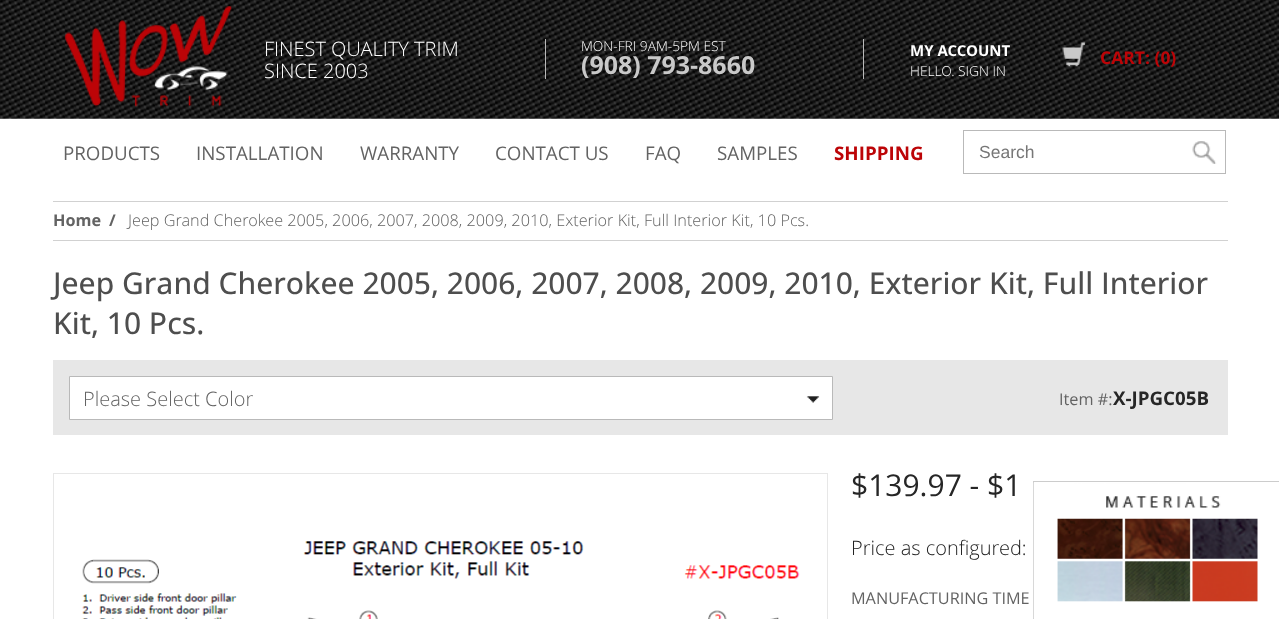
<!DOCTYPE html>
<meta charset="utf-8">
<style>body { margin: 0 } canvas { display: block }</style>
<canvas id="canvas" width="1279" height="619"></canvas>
<img id="img1" src="images/1.png" hidden>
<img id="img2" src="images/2.png" hidden>
<img id="img3" src="images/3.png" hidden>
<img id="img4" src="images/4.png" hidden>
<img id="img5" src="images/5.png" hidden>
<img id="img6" src="images/6.png" hidden>
<img id="img7" src="images/7.png" hidden>
<script>
window.onload = function () {
    const canvas = document.getElementById('canvas');
    const context = canvas.getContext('2d');
    context.miterLimit = 4;
    context.fontKerning = 'normal';

    context.fillStyle = 'rgb(255, 255, 255)';
    context.fillRect(0, 0, 1279, 619);
    context.drawImage(document.getElementById('img1'), 0, 0, 1279, 119);
    context.drawImage(document.getElementById('img2'), 64, 6, 168, 101);
    context.fillStyle = 'rgb(185, 185, 185)';
    context.fillRect(545, 39, 1, 40);
    context.fillRect(863, 39, 1, 40);
    context.drawImage(document.getElementById('img3'), 1062, 42, 23, 25);
    context.fillRect(963, 130, 263, 1);
    context.fillRect(963, 173, 225, 1);
    context.fillRect(963, 130, 1, 44);
    context.drawImage(document.getElementById('img4'), 1192, 141, 25, 23);
    context.fillRect(1225, 130, 1, 44);
    context.fillRect(1183, 173, 43, 1);
    context.fillStyle = 'rgb(209, 209, 209)';
    context.fillRect(53, 201, 1175, 1);
    context.fillRect(53, 240, 1175, 1);
    context.fillStyle = 'rgb(231, 231, 231)';
    context.fillRect(53, 360, 1175, 75);
    context.fillStyle = 'rgb(255, 255, 255)';
    context.beginPath();
    context.rect(69.5, 376.5, 763, 43);
    context.fill();
    context.strokeStyle = 'rgb(185, 185, 185)';
    context.stroke();
    context.drawImage(document.getElementById('img5'), 806, 396, 14, 7);
    context.strokeStyle = 'rgb(231, 231, 231)';
    context.strokeRect(53.5, 473.5, 774, 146);
    context.drawImage(document.getElementById('img6'), 82, 541, 718, 78);
    context.strokeStyle = 'rgb(204, 204, 204)';
    context.strokeRect(1033.5, 481.5, 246, 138);
    context.drawImage(document.getElementById('img7'), 1033, 482, 225, 137);
    context.font = '300 20px Open Sans';
    context.fillText('FINEST QUALITY TRIM', 264, 56);
    context.fillText('SINCE 2003', 264, 78);
    context.font = '300 13.75px Open Sans';
    context.fillText('MON-FRI 9AM-5PM EST', 581, 51);
    context.font = 'bold 25px Open Sans';
    context.fillStyle = 'rgb(201, 201, 201)';
    context.fillText('(908) 793-8660', 581, 74);
    context.font = 'bold 15px Open Sans';
    context.fillStyle = 'rgb(255, 255, 255)';
    context.fillText('MY ACCOUNT', 910, 56);
    context.font = '300 13.75px Open Sans';
    context.fillText('HELLO. SIGN IN', 910, 76);
    context.font = 'bold 17.5px Open Sans';
    context.fillStyle = 'rgb(188, 4, 7)';
    context.fillText('CART: (0)', 1100, 64);
    context.font = '18.75px Open Sans';
    context.fillStyle = 'rgb(99, 99, 99)';
    context.fillText('PRODUCTS', 63, 160);
    context.fillText('INSTALLATION', 196, 160);
    context.fillText('WARRANTY', 360, 160);
    context.fillText('CONTACT US', 495, 160);
    context.fillText('FAQ', 645, 160);
    context.fillText('SAMPLES', 717, 160);
    context.font = 'bold 18.75px Open Sans';
    context.fillStyle = 'rgb(188, 4, 7)';
    context.fillText('SHIPPING', 834, 160);
    context.font = '17.5px Liberation Sans';
    context.fillStyle = 'rgb(119, 119, 119)';
    context.fillText('Search', 979, 158);
    context.font = 'bold 16.25px Open Sans';
    context.fillStyle = 'rgb(99, 99, 99)';
    context.fillText('Home', 53, 226);
    context.fillText('/', 109, 226);
    context.font = '300 16.25px Open Sans';
    context.fillText('Jeep Grand Cherokee 2005, 2006, 2007, 2008, 2009, 2010, Exterior Kit, Full Interior Kit, 10 Pcs.', 128, 226);
    context.font = '500 30px Open Sans';
    context.fillStyle = 'rgb(78, 78, 78)';
    context.fillText('Jeep Grand Cherokee 2005, 2006, 2007, 2008, 2009, 2010, Exterior Kit, Full Interior', 53, 294);
    context.fillText('Kit, 10 Pcs.', 53, 334);
    context.font = '300 20px Open Sans';
    context.fillStyle = 'rgb(99, 99, 99)';
    context.fillText('Please Select Color', 83, 406);
    context.font = '16.25px Open Sans';
    context.fillText('Item #:', 1059, 405);
    context.font = 'bold 18.75px Open Sans';
    context.fillStyle = 'rgb(38, 38, 38)';
    context.fillText('X-JPGC05B', 1113, 405);
    context.font = '30px Open Sans';
    context.fillText('$139.97 - $1', 851, 496);
    context.font = '300 20px Open Sans';
    context.fillStyle = 'rgb(32, 32, 32)';
    context.fillText('Price as configured:', 851, 555);
    context.font = '16.25px Open Sans';
    context.fillStyle = 'rgb(99, 99, 99)';
    context.fillText('MANUFACTURING TIME', 851, 604);
};
</script>
